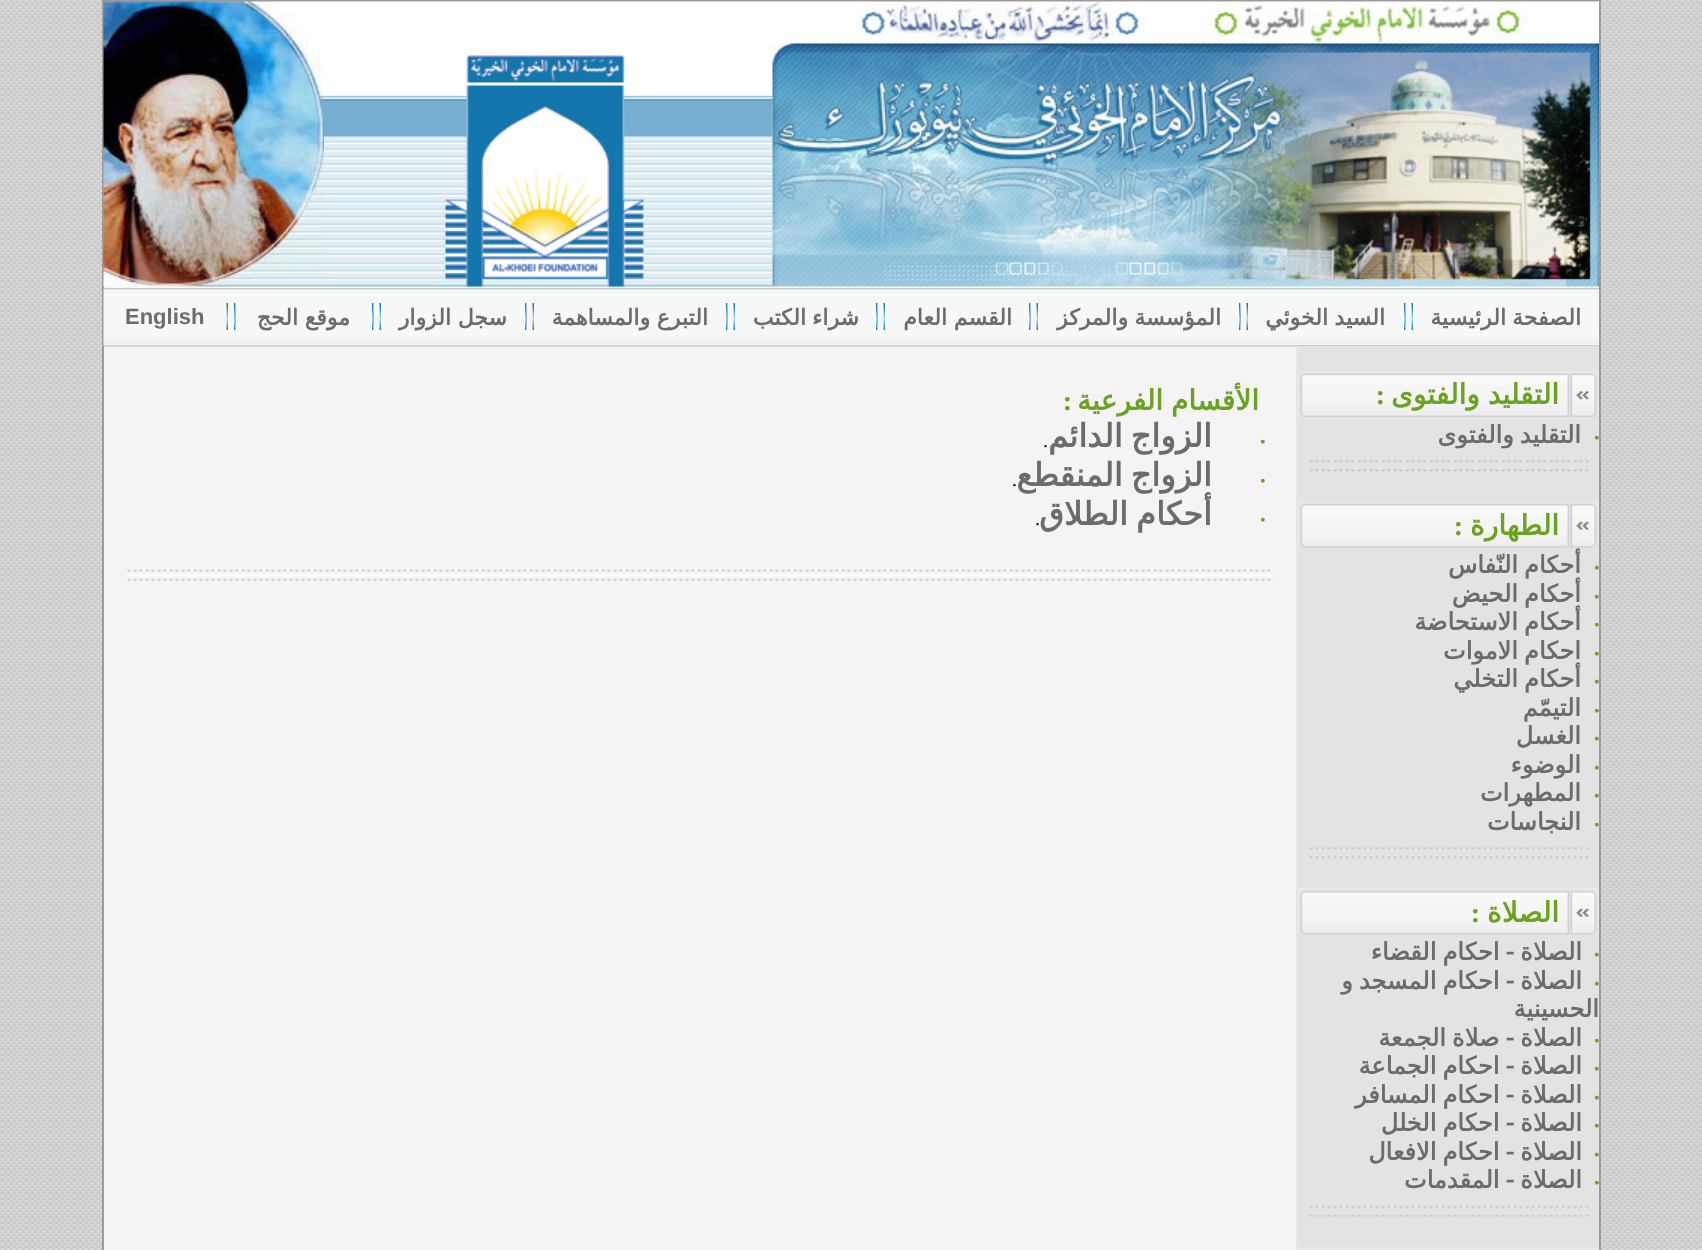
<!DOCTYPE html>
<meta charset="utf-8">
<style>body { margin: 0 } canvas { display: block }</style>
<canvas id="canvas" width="1702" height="1250"></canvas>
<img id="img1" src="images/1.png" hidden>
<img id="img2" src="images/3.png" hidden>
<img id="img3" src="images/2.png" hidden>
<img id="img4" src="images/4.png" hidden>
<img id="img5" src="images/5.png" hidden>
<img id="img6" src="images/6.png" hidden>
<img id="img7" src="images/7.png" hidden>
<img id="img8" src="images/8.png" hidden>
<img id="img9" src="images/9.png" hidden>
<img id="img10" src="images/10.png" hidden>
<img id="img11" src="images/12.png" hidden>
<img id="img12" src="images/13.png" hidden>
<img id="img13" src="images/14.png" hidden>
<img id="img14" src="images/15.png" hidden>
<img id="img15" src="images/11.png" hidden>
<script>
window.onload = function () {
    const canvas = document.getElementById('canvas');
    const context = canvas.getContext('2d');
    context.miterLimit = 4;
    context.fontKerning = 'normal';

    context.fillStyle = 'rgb(255, 255, 255)';
    context.fillRect(0, 0, 1702, 1250);
    context.drawImage(document.getElementById('img1'), 0, 0, 1702, 1250);
    context.fillRect(104, 2, 1495, 345);
    context.strokeStyle = 'rgb(158, 154, 154)';
    context.lineWidth = 2;
    context.strokeRect(103, 1, 1497, 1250);
    context.drawImage(document.getElementById('img2'), 324, 1, 449, 286);
    context.drawImage(document.getElementById('img3'), 772, 1, 827, 43);
    context.drawImage(document.getElementById('img4'), 445, 55, 199, 232);
    context.drawImage(document.getElementById('img5'), 103, 1, 221, 286);
    context.drawImage(document.getElementById('img6'), 772, 43, 827, 244);
    context.drawImage(document.getElementById('img7'), 103, 287, 1496, 60);
    context.drawImage(document.getElementById('img8'), 1411, 303, 2, 27);
    context.drawImage(document.getElementById('img9'), 1404, 303, 2, 27);
    context.drawImage(document.getElementById('img8'), 1246, 303, 2, 27);
    context.drawImage(document.getElementById('img9'), 1239, 303, 2, 27);
    context.drawImage(document.getElementById('img8'), 1036, 303, 2, 27);
    context.drawImage(document.getElementById('img9'), 1029, 303, 2, 27);
    context.drawImage(document.getElementById('img8'), 883, 303, 2, 27);
    context.drawImage(document.getElementById('img9'), 876, 303, 2, 27);
    context.drawImage(document.getElementById('img8'), 733, 303, 2, 27);
    context.drawImage(document.getElementById('img9'), 726, 303, 2, 27);
    context.drawImage(document.getElementById('img8'), 532, 303, 2, 27);
    context.drawImage(document.getElementById('img9'), 525, 303, 2, 27);
    context.drawImage(document.getElementById('img8'), 379, 303, 2, 27);
    context.drawImage(document.getElementById('img9'), 372, 303, 2, 27);
    context.drawImage(document.getElementById('img9'), 234, 303, 2, 27);
    context.drawImage(document.getElementById('img8'), 226, 303, 2, 27);
    context.fillStyle = 'rgb(227, 227, 227)';
    context.fillRect(1299, 347, 300, 900);
    context.drawImage(document.getElementById('img10'), 1299, 371, 300, 46);
    context.drawImage(document.getElementById('img11'), 1299, 501, 300, 47);
    context.drawImage(document.getElementById('img12'), 1309, 847, 280, 12);
    context.drawImage(document.getElementById('img11'), 1299, 888, 300, 47);
    context.drawImage(document.getElementById('img13'), 1309, 1206, 280, 11);
    context.fillStyle = 'rgb(232, 232, 232)';
    context.fillRect(1299, 1247, 300, 3);
    context.fillStyle = 'rgb(230, 230, 230)';
    context.fillRect(1296, 346, 3, 904);
    context.fillStyle = 'rgb(245, 243, 244)';
    context.fillRect(104, 347, 1192, 903);
    context.drawImage(document.getElementById('img14'), 126, 569, 1148, 12);
    context.direction = 'rtl';
    context.font = 'bold 22px DejaVu Sans';
    context.fillStyle = 'rgb(108, 108, 108)';
    context.fillText('الصفحة', 1581, 325);
    context.fillText('الرئيسية', 1506, 325);
    context.fillText('السيد', 1385, 325);
    context.fillText('الخوئي', 1328, 325);
    context.fillText('المؤسسة', 1221, 325);
    context.fillText('والمركز', 1128, 325);
    context.fillText('القسم', 1012, 325);
    context.fillText('العام', 947, 325);
    context.fillText('شراء', 859, 325);
    context.fillText('الكتب', 806, 325);
    context.fillText('التبرع', 708, 325);
    context.fillText('والمساهمة', 650, 325);
    context.fillText('سجل', 507, 325);
    context.fillText('الزوار', 451, 325);
    context.fillText('موقع', 350, 325);
    context.fillText('الحج', 298, 325);
    context.direction = 'ltr';
    context.font = 'bold 22px Liberation Sans';
    context.fillText('English', 125, 324);
    context.wordSpacing = '-1px';
    context.direction = 'rtl';
    context.font = 'bold 28px DejaVu Sans';
    context.fillStyle = 'rgb(105, 163, 33)';
    context.fillText('التقليد والفتوى', 1559, 404);
    context.wordSpacing = '0px';
    context.font = 'bold 28px Liberation Serif';
    context.fillText(':', 1385, 404);
    context.direction = 'ltr';
    context.font = '16px Liberation Serif';
    context.fillText('•', 1594, 443);
    context.wordSpacing = '-1.5px';
    context.direction = 'rtl';
    context.font = 'bold 24px DejaVu Sans';
    context.fillStyle = 'rgb(108, 108, 108)';
    context.fillText('التقليد والفتوى', 1581, 443);
    context.drawImage(document.getElementById('img15'), 1309, 448, 280, 24);
    context.wordSpacing = '0px';
    context.font = 'bold 28px DejaVu Sans';
    context.fillStyle = 'rgb(105, 163, 33)';
    context.fillText('الطهارة', 1559, 535);
    context.font = 'bold 28px Liberation Serif';
    context.fillText(':', 1463, 535);
    context.direction = 'ltr';
    context.font = '16px Liberation Serif';
    context.fillText('•', 1594, 573);
    context.wordSpacing = '-1.5px';
    context.direction = 'rtl';
    context.font = 'bold 24px DejaVu Sans';
    context.fillStyle = 'rgb(108, 108, 108)';
    context.fillText('أحكام النّفاس', 1581, 573);
    context.wordSpacing = '0px';
    context.direction = 'ltr';
    context.font = '16px Liberation Serif';
    context.fillStyle = 'rgb(105, 163, 33)';
    context.fillText('•', 1594, 602);
    context.wordSpacing = '-1.5px';
    context.direction = 'rtl';
    context.font = 'bold 24px DejaVu Sans';
    context.fillStyle = 'rgb(108, 108, 108)';
    context.fillText('أحكام الحيض', 1581, 602);
    context.wordSpacing = '0px';
    context.direction = 'ltr';
    context.font = '16px Liberation Serif';
    context.fillStyle = 'rgb(105, 163, 33)';
    context.fillText('•', 1594, 630);
    context.wordSpacing = '-1.5px';
    context.direction = 'rtl';
    context.font = 'bold 24px DejaVu Sans';
    context.fillStyle = 'rgb(108, 108, 108)';
    context.fillText('أحكام الاستحاضة', 1581, 630);
    context.wordSpacing = '0px';
    context.direction = 'ltr';
    context.font = '16px Liberation Serif';
    context.fillStyle = 'rgb(105, 163, 33)';
    context.fillText('•', 1594, 659);
    context.wordSpacing = '-1.5px';
    context.direction = 'rtl';
    context.font = 'bold 24px DejaVu Sans';
    context.fillStyle = 'rgb(108, 108, 108)';
    context.fillText('احكام الاموات', 1581, 659);
    context.wordSpacing = '0px';
    context.direction = 'ltr';
    context.font = '16px Liberation Serif';
    context.fillStyle = 'rgb(105, 163, 33)';
    context.fillText('•', 1594, 687);
    context.wordSpacing = '-1.5px';
    context.direction = 'rtl';
    context.font = 'bold 24px DejaVu Sans';
    context.fillStyle = 'rgb(108, 108, 108)';
    context.fillText('أحكام التخلي', 1581, 687);
    context.wordSpacing = '0px';
    context.direction = 'ltr';
    context.font = '16px Liberation Serif';
    context.fillStyle = 'rgb(105, 163, 33)';
    context.fillText('•', 1594, 716);
    context.direction = 'rtl';
    context.font = 'bold 24px DejaVu Sans';
    context.fillStyle = 'rgb(108, 108, 108)';
    context.fillText('التيمّم', 1581, 716);
    context.direction = 'ltr';
    context.font = '16px Liberation Serif';
    context.fillStyle = 'rgb(105, 163, 33)';
    context.fillText('•', 1594, 744);
    context.direction = 'rtl';
    context.font = 'bold 24px DejaVu Sans';
    context.fillStyle = 'rgb(108, 108, 108)';
    context.fillText('الغسل', 1581, 744);
    context.direction = 'ltr';
    context.font = '16px Liberation Serif';
    context.fillStyle = 'rgb(105, 163, 33)';
    context.fillText('•', 1594, 773);
    context.direction = 'rtl';
    context.font = 'bold 24px DejaVu Sans';
    context.fillStyle = 'rgb(108, 108, 108)';
    context.fillText('الوضوء', 1581, 773);
    context.direction = 'ltr';
    context.font = '16px Liberation Serif';
    context.fillStyle = 'rgb(105, 163, 33)';
    context.fillText('•', 1594, 801);
    context.direction = 'rtl';
    context.font = 'bold 24px DejaVu Sans';
    context.fillStyle = 'rgb(108, 108, 108)';
    context.fillText('المطهرات', 1581, 801);
    context.direction = 'ltr';
    context.font = '16px Liberation Serif';
    context.fillStyle = 'rgb(105, 163, 33)';
    context.fillText('•', 1594, 830);
    context.direction = 'rtl';
    context.font = 'bold 24px DejaVu Sans';
    context.fillStyle = 'rgb(108, 108, 108)';
    context.fillText('النجاسات', 1581, 830);
    context.font = 'bold 28px DejaVu Sans';
    context.fillStyle = 'rgb(105, 163, 33)';
    context.fillText('الصلاة', 1559, 922);
    context.font = 'bold 28px Liberation Serif';
    context.fillText(':', 1480, 922);
    context.direction = 'ltr';
    context.font = '16px Liberation Serif';
    context.fillText('•', 1594, 960);
    context.wordSpacing = '-1.5px';
    context.direction = 'rtl';
    context.font = 'bold 24px DejaVu Sans';
    context.fillStyle = 'rgb(108, 108, 108)';
    context.fillText('الصلاة - احكام القضاء', 1582, 960);
    context.wordSpacing = '0px';
    context.direction = 'ltr';
    context.font = '16px Liberation Serif';
    context.fillStyle = 'rgb(105, 163, 33)';
    context.fillText('•', 1594, 989);
    context.wordSpacing = '-1.5px';
    context.direction = 'rtl';
    context.font = 'bold 24px DejaVu Sans';
    context.fillStyle = 'rgb(108, 108, 108)';
    context.fillText('الصلاة - احكام المسجد و', 1582, 989);
    context.wordSpacing = '0px';
    context.fillText('الحسينية', 1599, 1017);
    context.direction = 'ltr';
    context.font = '16px Liberation Serif';
    context.fillStyle = 'rgb(105, 163, 33)';
    context.fillText('•', 1594, 1046);
    context.wordSpacing = '-1.5px';
    context.direction = 'rtl';
    context.font = 'bold 24px DejaVu Sans';
    context.fillStyle = 'rgb(108, 108, 108)';
    context.fillText('الصلاة - صلاة الجمعة', 1582, 1046);
    context.wordSpacing = '0px';
    context.direction = 'ltr';
    context.font = '16px Liberation Serif';
    context.fillStyle = 'rgb(105, 163, 33)';
    context.fillText('•', 1594, 1074);
    context.wordSpacing = '-1.5px';
    context.direction = 'rtl';
    context.font = 'bold 24px DejaVu Sans';
    context.fillStyle = 'rgb(108, 108, 108)';
    context.fillText('الصلاة - احكام الجماعة', 1582, 1074);
    context.wordSpacing = '0px';
    context.direction = 'ltr';
    context.font = '16px Liberation Serif';
    context.fillStyle = 'rgb(105, 163, 33)';
    context.fillText('•', 1594, 1103);
    context.wordSpacing = '-1.5px';
    context.direction = 'rtl';
    context.font = 'bold 24px DejaVu Sans';
    context.fillStyle = 'rgb(108, 108, 108)';
    context.fillText('الصلاة - احكام المسافر', 1582, 1103);
    context.wordSpacing = '0px';
    context.direction = 'ltr';
    context.font = '16px Liberation Serif';
    context.fillStyle = 'rgb(105, 163, 33)';
    context.fillText('•', 1594, 1131);
    context.wordSpacing = '-1.5px';
    context.direction = 'rtl';
    context.font = 'bold 24px DejaVu Sans';
    context.fillStyle = 'rgb(108, 108, 108)';
    context.fillText('الصلاة - احكام الخلل', 1582, 1131);
    context.wordSpacing = '0px';
    context.direction = 'ltr';
    context.font = '16px Liberation Serif';
    context.fillStyle = 'rgb(105, 163, 33)';
    context.fillText('•', 1594, 1160);
    context.wordSpacing = '-1.5px';
    context.direction = 'rtl';
    context.font = 'bold 24px DejaVu Sans';
    context.fillStyle = 'rgb(108, 108, 108)';
    context.fillText('الصلاة - احكام الافعال', 1582, 1160);
    context.wordSpacing = '0px';
    context.direction = 'ltr';
    context.font = '16px Liberation Serif';
    context.fillStyle = 'rgb(105, 163, 33)';
    context.fillText('•', 1594, 1188);
    context.wordSpacing = '-1.5px';
    context.direction = 'rtl';
    context.font = 'bold 24px DejaVu Sans';
    context.fillStyle = 'rgb(108, 108, 108)';
    context.fillText('الصلاة - المقدمات', 1582, 1188);
    context.wordSpacing = '-1px';
    context.font = 'bold 28px DejaVu Sans';
    context.fillStyle = 'rgb(105, 163, 33)';
    context.fillText('الأقسام الفرعية', 1259, 410);
    context.wordSpacing = '0px';
    context.font = 'bold 28px Liberation Serif';
    context.fillText(':', 1072, 410);
    context.direction = 'ltr';
    context.font = '16px Liberation Serif';
    context.fillText('•', 1260, 447);
    context.wordSpacing = '-2px';
    context.direction = 'rtl';
    context.font = 'bold 32px DejaVu Sans';
    context.fillStyle = 'rgb(108, 108, 108)';
    context.fillText('الزواج الدائم', 1212, 447);
    context.wordSpacing = '0px';
    context.direction = 'ltr';
    context.font = '20px Liberation Serif';
    context.fillStyle = 'rgb(0, 0, 0)';
    context.fillText('.', 1043, 447);
    context.font = '16px Liberation Serif';
    context.fillStyle = 'rgb(105, 163, 33)';
    context.fillText('•', 1260, 486);
    context.wordSpacing = '-2px';
    context.direction = 'rtl';
    context.font = 'bold 32px DejaVu Sans';
    context.fillStyle = 'rgb(108, 108, 108)';
    context.fillText('الزواج المنقطع', 1212, 486);
    context.wordSpacing = '0px';
    context.direction = 'ltr';
    context.font = '20px Liberation Serif';
    context.fillStyle = 'rgb(0, 0, 0)';
    context.fillText('.', 1012, 486);
    context.font = '16px Liberation Serif';
    context.fillStyle = 'rgb(105, 163, 33)';
    context.fillText('•', 1260, 525);
    context.wordSpacing = '-2px';
    context.direction = 'rtl';
    context.font = 'bold 32px DejaVu Sans';
    context.fillStyle = 'rgb(108, 108, 108)';
    context.fillText('أحكام الطلاق', 1212, 525);
    context.wordSpacing = '0px';
    context.direction = 'ltr';
    context.font = '20px Liberation Serif';
    context.fillStyle = 'rgb(0, 0, 0)';
    context.fillText('.', 1035, 525);
};
</script>
